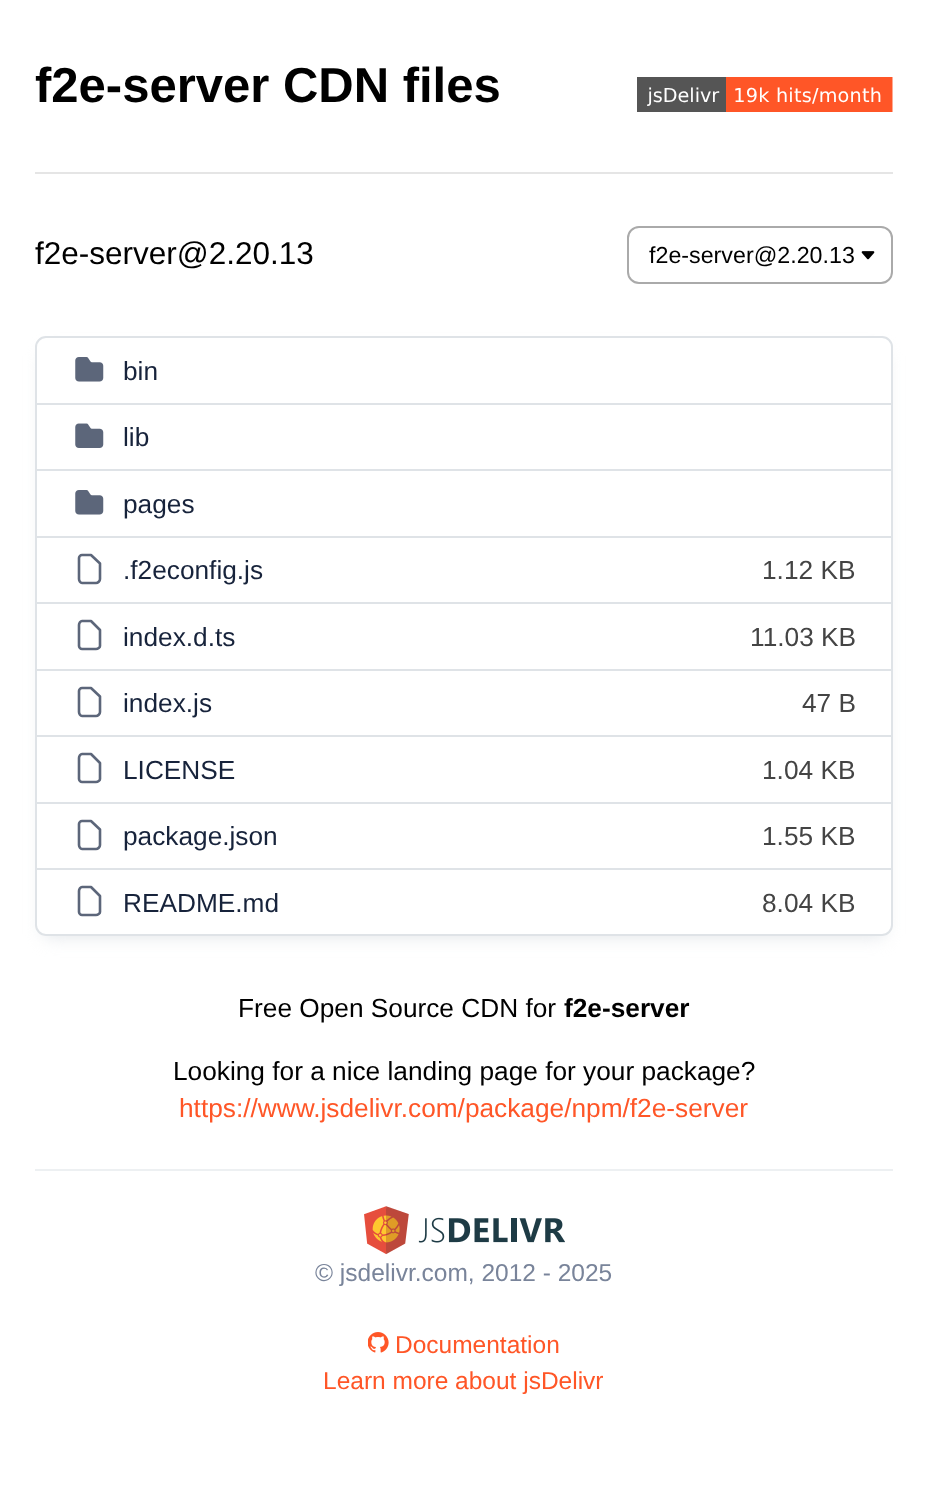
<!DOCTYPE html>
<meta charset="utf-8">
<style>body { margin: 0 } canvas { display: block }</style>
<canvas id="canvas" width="926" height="1501"></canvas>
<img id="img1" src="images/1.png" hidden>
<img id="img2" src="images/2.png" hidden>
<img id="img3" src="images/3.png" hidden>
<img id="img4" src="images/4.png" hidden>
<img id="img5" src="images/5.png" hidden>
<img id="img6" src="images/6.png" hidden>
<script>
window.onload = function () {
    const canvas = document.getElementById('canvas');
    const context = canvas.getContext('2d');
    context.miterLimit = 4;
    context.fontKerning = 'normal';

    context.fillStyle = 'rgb(255, 255, 255)';
    context.fillRect(0, 0, 926, 1501);
    context.drawImage(document.getElementById('img1'), 637, 77, 256, 35);
    context.fillStyle = 'rgb(229, 229, 229)';
    context.fillRect(35, 172, 858, 2);
    context.drawImage(document.getElementById('img2'), 861, 251, 14, 9);
    context.beginPath();
    context.roundRect(628, 227, 264, 56, 11);
    context.strokeStyle = 'rgb(170, 170, 170)';
    context.lineWidth = 2;
    context.stroke();
    context.save();
    context.beginPath();
    context.moveTo(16, 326);
    context.lineTo(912, 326);
    context.lineTo(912, 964);
    context.lineTo(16, 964);
    context.closePath();
    context.moveTo(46, 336);
    context.lineTo(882, 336);
    context.bezierCurveTo(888, 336, 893, 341, 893, 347);
    context.lineTo(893, 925);
    context.bezierCurveTo(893, 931, 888, 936, 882, 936);
    context.lineTo(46, 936);
    context.bezierCurveTo(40, 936, 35, 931, 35, 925);
    context.lineTo(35, 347);
    context.bezierCurveTo(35, 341, 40, 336, 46, 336);
    context.closePath();
    context.clip('evenodd');
    context.fillStyle = 'rgb(223, 227, 231)';
    context.filter = 'blur(9px)';
    context.beginPath();
    context.roundRect(44, 354, 840, 582, 2);
    context.fill();
    context.filter = 'none';
    context.restore();
    context.beginPath();
    context.roundRect(36, 337, 856, 598, 10);
    context.strokeStyle = 'rgb(223, 227, 231)';
    context.stroke();
    context.fillStyle = 'rgb(223, 227, 231)';
    context.fillRect(37, 403, 854, 2);
    context.drawImage(document.getElementById('img3'), 75, 357, 29, 25);
    context.fillRect(37, 469, 854, 2);
    context.drawImage(document.getElementById('img4'), 75, 423, 29, 25);
    context.fillRect(37, 536, 854, 2);
    context.drawImage(document.getElementById('img3'), 75, 490, 29, 25);
    context.fillRect(37, 602, 854, 2);
    context.beginPath();
    context.moveTo(79, 558);
    context.bezierCurveTo(79, 556.5, 80.5, 555, 82, 555);
    context.lineTo(91, 555);
    context.lineTo(100, 563.5);
    context.lineTo(100, 579);
    context.bezierCurveTo(100, 581, 98, 583, 96, 583);
    context.lineTo(82, 583);
    context.bezierCurveTo(80.5, 583, 79, 581, 79, 579);
    context.closePath();
    context.strokeStyle = 'rgb(92, 102, 122)';
    context.lineWidth = 2.6;
    context.lineCap = 'round';
    context.lineJoin = 'round';
    context.stroke();
    context.fillRect(37, 669, 854, 2);
    context.beginPath();
    context.moveTo(79, 625);
    context.bezierCurveTo(79, 623, 80.5, 621, 82, 621);
    context.lineTo(91, 621);
    context.lineTo(100, 630);
    context.lineTo(100, 646);
    context.bezierCurveTo(100, 647.5, 98, 649, 96, 649);
    context.lineTo(82, 649);
    context.bezierCurveTo(80.5, 649, 79, 647.5, 79, 646);
    context.closePath();
    context.stroke();
    context.fillRect(37, 735, 854, 2);
    context.beginPath();
    context.moveTo(79, 691);
    context.bezierCurveTo(79, 689.5, 80.5, 688, 82, 688);
    context.lineTo(91, 688);
    context.lineTo(100, 696.5);
    context.lineTo(100, 712);
    context.bezierCurveTo(100, 714, 98, 716, 96, 716);
    context.lineTo(82, 716);
    context.bezierCurveTo(80.5, 716, 79, 714, 79, 712);
    context.closePath();
    context.stroke();
    context.fillRect(37, 802, 854, 2);
    context.beginPath();
    context.moveTo(79, 758);
    context.bezierCurveTo(79, 756, 80.5, 754, 82, 754);
    context.lineTo(91, 754);
    context.lineTo(100, 763);
    context.lineTo(100, 779);
    context.bezierCurveTo(100, 780.5, 98, 782, 96, 782);
    context.lineTo(82, 782);
    context.bezierCurveTo(80.5, 782, 79, 780.5, 79, 779);
    context.closePath();
    context.stroke();
    context.fillRect(37, 868, 854, 2);
    context.beginPath();
    context.moveTo(79, 824);
    context.bezierCurveTo(79, 822.5, 80.5, 821, 82, 821);
    context.lineTo(91, 821);
    context.lineTo(100, 829.5);
    context.lineTo(100, 845);
    context.bezierCurveTo(100, 847, 98, 849, 96, 849);
    context.lineTo(82, 849);
    context.bezierCurveTo(80.5, 849, 79, 847, 79, 845);
    context.closePath();
    context.stroke();
    context.beginPath();
    context.moveTo(79, 891);
    context.bezierCurveTo(79, 889, 80.5, 887, 82, 887);
    context.lineTo(91, 887);
    context.lineTo(100, 896);
    context.lineTo(100, 912);
    context.bezierCurveTo(100, 913.5, 98, 915, 96, 915);
    context.lineTo(82, 915);
    context.bezierCurveTo(80.5, 915, 79, 913.5, 79, 912);
    context.closePath();
    context.stroke();
    context.fillStyle = 'rgb(237, 240, 242)';
    context.fillRect(35, 1169, 858, 2);
    context.drawImage(document.getElementById('img5'), 364, 1206, 201, 49);
    context.drawImage(document.getElementById('img6'), 368, 1332, 21, 21);
    context.font = 'bold 49px Liberation Sans';
    context.fillStyle = 'rgb(0, 0, 0)';
    context.fillText('f2e-server CDN files', 35, 102);
    context.font = '31.5px Liberation Sans';
    context.fillText('f2e-server@2.20.13', 35, 264);
    context.font = '23.25px Liberation Sans';
    context.fillText('f2e-server@2.20.13', 649, 263);
    context.font = '26.25px Liberation Sans';
    context.fillStyle = 'rgb(23, 35, 59)';
    context.fillText('bin', 123, 380);
    context.fillText('lib', 123, 446);
    context.fillText('pages', 123, 513);
    context.fillText('.f2econfig.js', 123, 579);
    context.fillStyle = 'rgb(68, 68, 68)';
    context.fillText('1.12 KB', 762, 579);
    context.fillStyle = 'rgb(23, 35, 59)';
    context.fillText('index.d.ts', 123, 646);
    context.fillStyle = 'rgb(68, 68, 68)';
    context.fillText('11.03 KB', 750, 646);
    context.fillStyle = 'rgb(23, 35, 59)';
    context.fillText('index.js', 123, 712);
    context.fillStyle = 'rgb(68, 68, 68)';
    context.fillText('47 B', 802, 712);
    context.fillStyle = 'rgb(23, 35, 59)';
    context.fillText('LICENSE', 123, 779);
    context.fillStyle = 'rgb(68, 68, 68)';
    context.fillText('1.04 KB', 762, 779);
    context.fillStyle = 'rgb(23, 35, 59)';
    context.fillText('package.json', 123, 845);
    context.fillStyle = 'rgb(68, 68, 68)';
    context.fillText('1.55 KB', 762, 845);
    context.fillStyle = 'rgb(23, 35, 59)';
    context.fillText('README.md', 123, 912);
    context.fillStyle = 'rgb(68, 68, 68)';
    context.fillText('8.04 KB', 762, 912);
    context.fillStyle = 'rgb(0, 0, 0)';
    context.fillText('Free Open Source CDN for', 238, 1017);
    context.font = 'bold 26.25px Liberation Sans';
    context.fillText('f2e-server', 564, 1017);
    context.font = '26.25px Liberation Sans';
    context.fillText('Looking for a nice landing page for your package?', 173, 1080);
    context.fillStyle = 'rgb(255, 86, 39)';
    context.fillText('https://www.jsdelivr.com/package/npm/f2e-server', 179, 1117);
    context.font = '24.5px Liberation Sans';
    context.fillStyle = 'rgb(121, 132, 154)';
    context.fillText('© jsdelivr.com, 2012 - 2025', 315, 1281);
    context.fillStyle = 'rgb(255, 86, 39)';
    context.fillText('Documentation', 395, 1353);
    context.fillText('Learn more about jsDelivr', 323, 1389);
};
</script>
